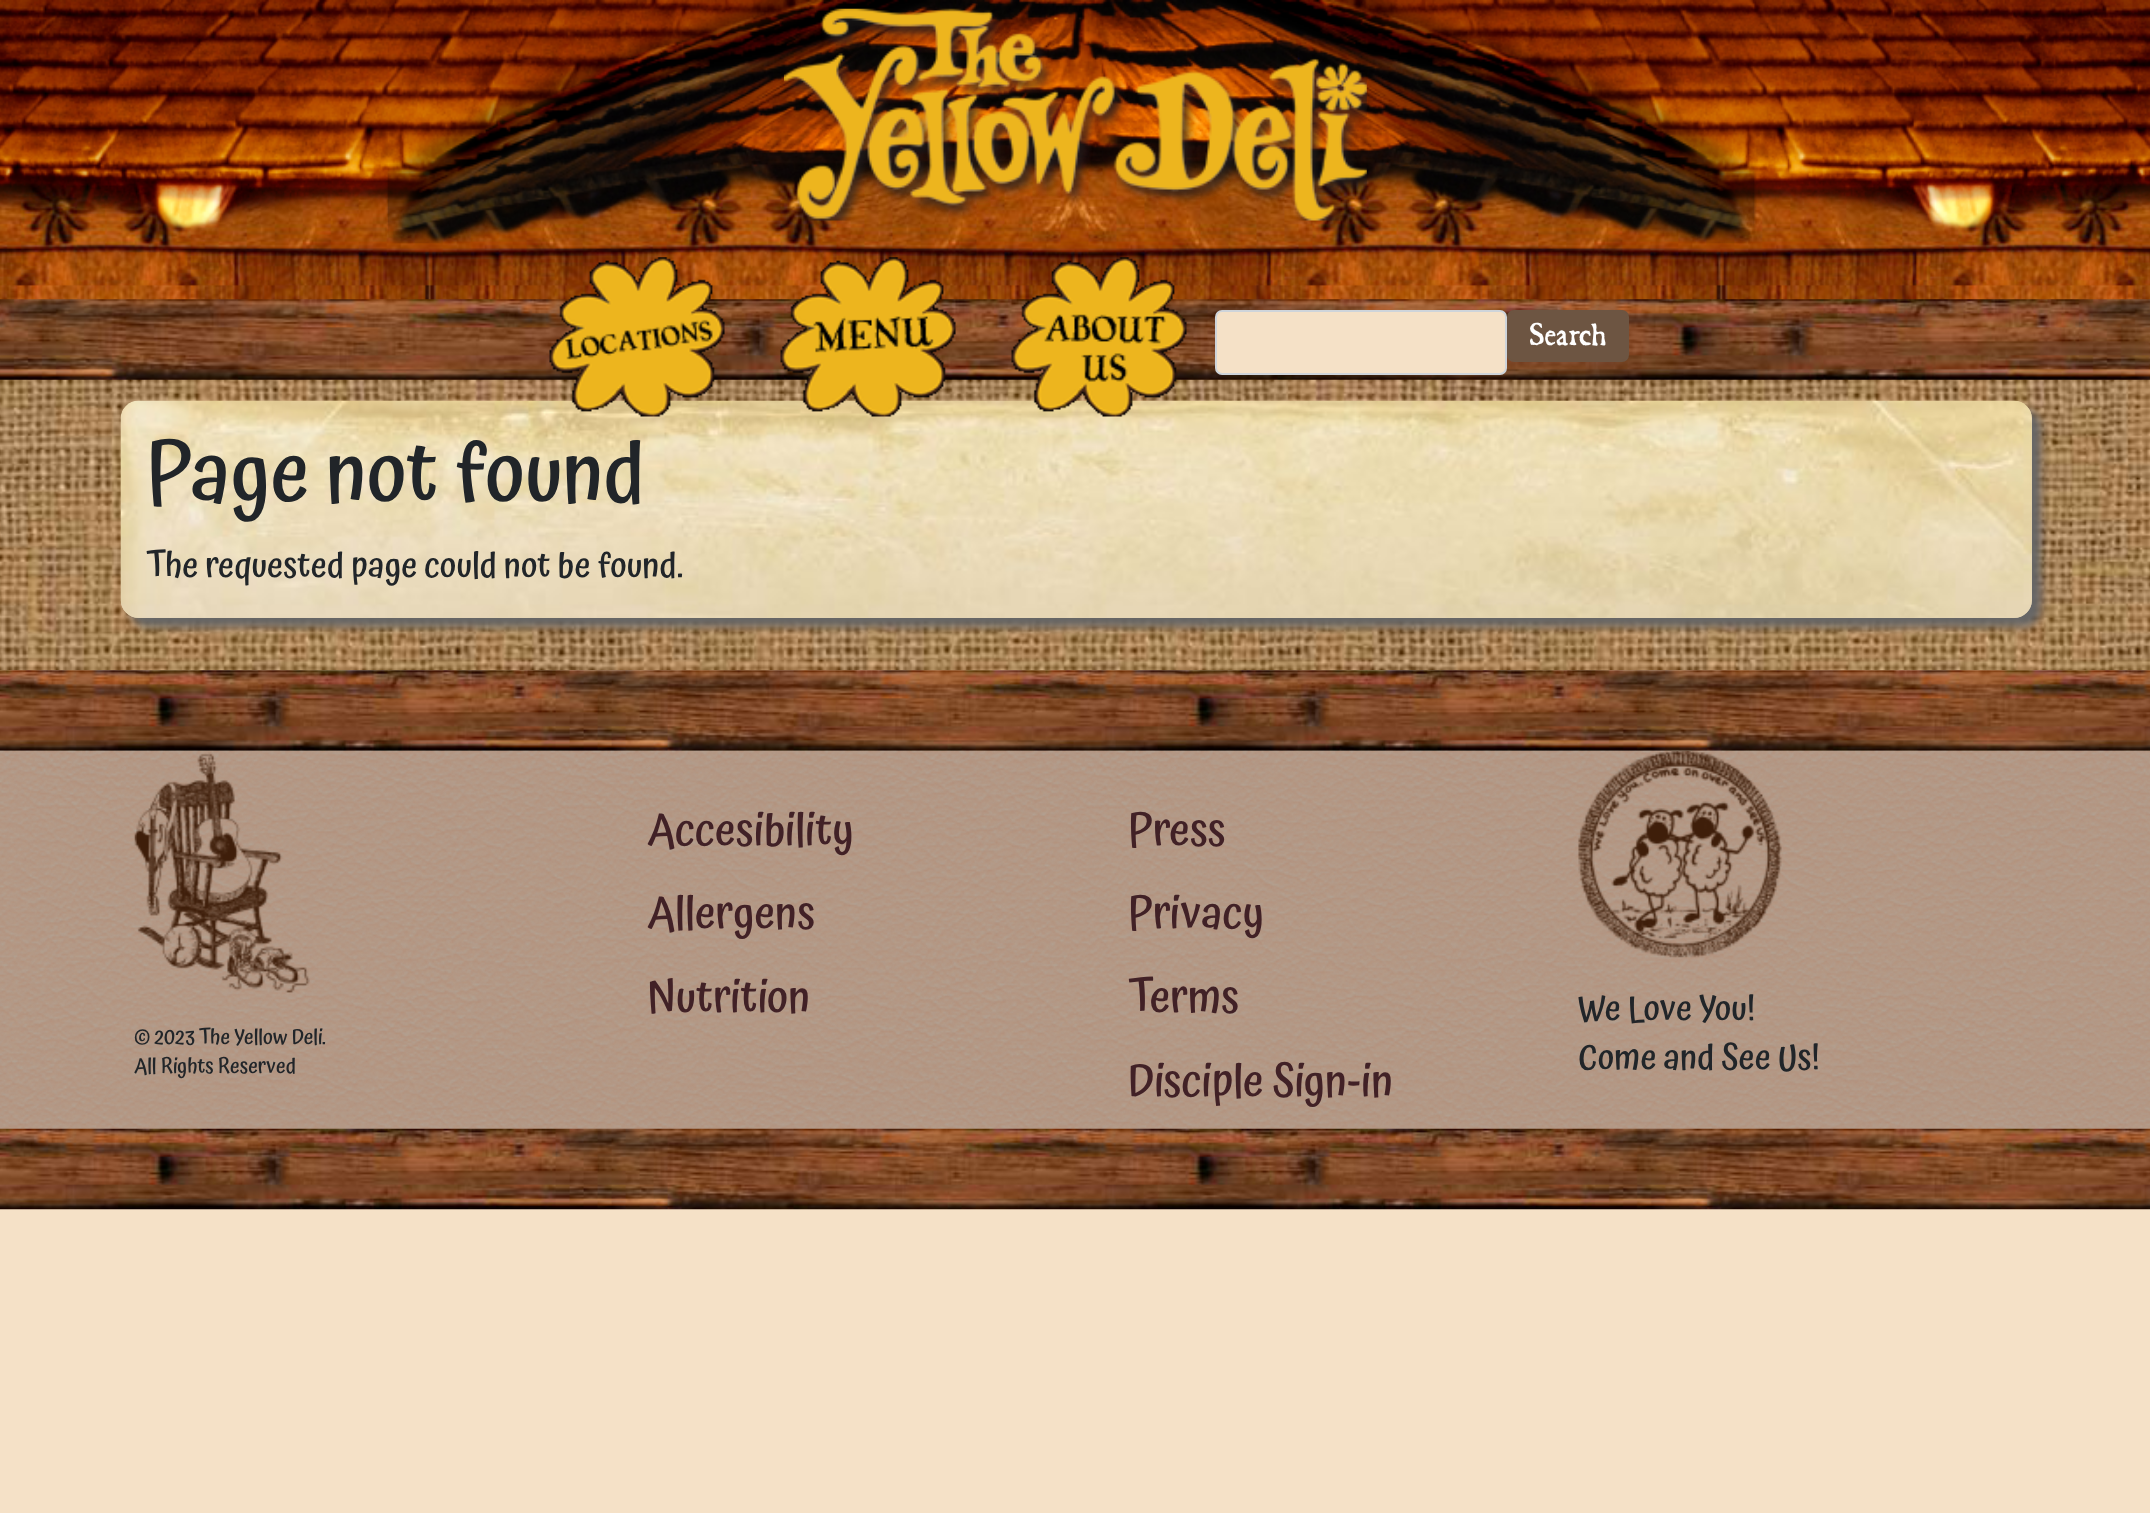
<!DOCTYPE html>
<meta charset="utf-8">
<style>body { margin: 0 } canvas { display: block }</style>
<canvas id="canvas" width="2150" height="1513"></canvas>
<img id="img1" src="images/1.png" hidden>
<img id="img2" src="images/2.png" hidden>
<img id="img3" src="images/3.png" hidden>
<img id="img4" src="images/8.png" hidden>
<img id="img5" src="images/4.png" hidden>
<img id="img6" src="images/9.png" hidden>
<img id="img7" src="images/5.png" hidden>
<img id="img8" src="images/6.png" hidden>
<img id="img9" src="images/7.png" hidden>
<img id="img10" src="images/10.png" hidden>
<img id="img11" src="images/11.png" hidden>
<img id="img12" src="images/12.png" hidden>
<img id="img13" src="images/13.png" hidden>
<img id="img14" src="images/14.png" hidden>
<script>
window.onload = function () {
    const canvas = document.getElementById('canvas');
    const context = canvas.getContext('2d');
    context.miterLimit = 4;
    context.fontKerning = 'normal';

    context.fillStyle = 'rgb(245, 225, 199)';
    context.fillRect(0, 0, 2150, 1513);
    context.drawImage(document.getElementById('img1'), 0, 148, 2150, 152);
    context.drawImage(document.getElementById('img2'), 0, 0, 2150, 244);
    context.drawImage(document.getElementById('img3'), 784, 8, 583, 213);
    context.drawImage(document.getElementById('img4'), 0, 379, 2150, 292);
    context.drawImage(document.getElementById('img5'), 0, 299, 2150, 81);
    context.fillStyle = 'rgb(102, 102, 102)';
    context.filter = 'blur(4.5px)';
    context.beginPath();
    context.roundRect(130, 410, 1911, 217, 18);
    context.fill();
    context.filter = 'none';
    context.fillStyle = 'rgb(226, 211, 180)';
    context.beginPath();
    context.roundRect(121, 401, 1911, 217, 18);
    context.fill();
    context.drawImage(document.getElementById('img6'), 120, 400, 1912, 218);
    context.drawImage(document.getElementById('img7'), 549, 257, 176, 160);
    context.drawImage(document.getElementById('img8'), 780, 257, 176, 160);
    context.drawImage(document.getElementById('img9'), 1011, 257, 176, 160);
    context.fillStyle = 'rgb(245, 225, 199)';
    context.beginPath();
    context.roundRect(1216, 311, 290, 63, 6);
    context.fill();
    context.strokeStyle = 'rgb(206, 212, 218)';
    context.lineWidth = 2;
    context.stroke();
    context.fillStyle = 'rgb(109, 85, 66)';
    context.beginPath();
    context.roundRect(1508, 311, 120, 50, 6);
    context.fill();
    context.strokeStyle = 'rgb(109, 85, 66)';
    context.stroke();
    context.drawImage(document.getElementById('img10'), 0, 670, 2150, 81);
    context.fillStyle = 'rgb(177, 141, 125)';
    context.fillRect(0, 751, 2150, 378);
    context.drawImage(document.getElementById('img11'), 0, 750, 2150, 379);
    context.drawImage(document.getElementById('img12'), 134, 752, 176, 241);
    context.drawImage(document.getElementById('img13'), 1578, 751, 204, 207);
    context.drawImage(document.getElementById('img14'), 0, 1128, 2150, 82);
    context.font = '28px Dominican';
    context.fillStyle = 'rgb(255, 255, 255)';
    context.fillText('Search', 1530, 345);
    context.font = '500 84px Atma';
    context.fillStyle = 'rgb(33, 37, 41)';
    context.fillText('Page not found', 146, 501);
    context.font = '500 35px Atma';
    context.fillText('The requested page could not be found.', 146, 577);
    context.font = '500 21px Atma';
    context.fillText('© 2023 The Yellow Deli.', 134, 1044);
    context.fillText('All Rights Reserved', 134, 1073);
    context.font = '500 44.75px Atma';
    context.fillStyle = 'rgb(65, 33, 38)';
    context.fillText('Accesibility', 647, 845);
    context.fillText('Allergens', 647, 928);
    context.fillText('Nutrition', 647, 1012);
    context.fillText('Press', 1128, 845);
    context.fillText('Privacy', 1128, 928);
    context.fillText('Terms', 1128, 1012);
    context.fillText('Disciple Sign-in', 1128, 1096);
    context.font = '500 35px Atma';
    context.fillStyle = 'rgb(33, 37, 41)';
    context.fillText('We Love You!', 1578, 1020);
    context.fillText('Come and See Us!', 1578, 1069);
};
</script>
